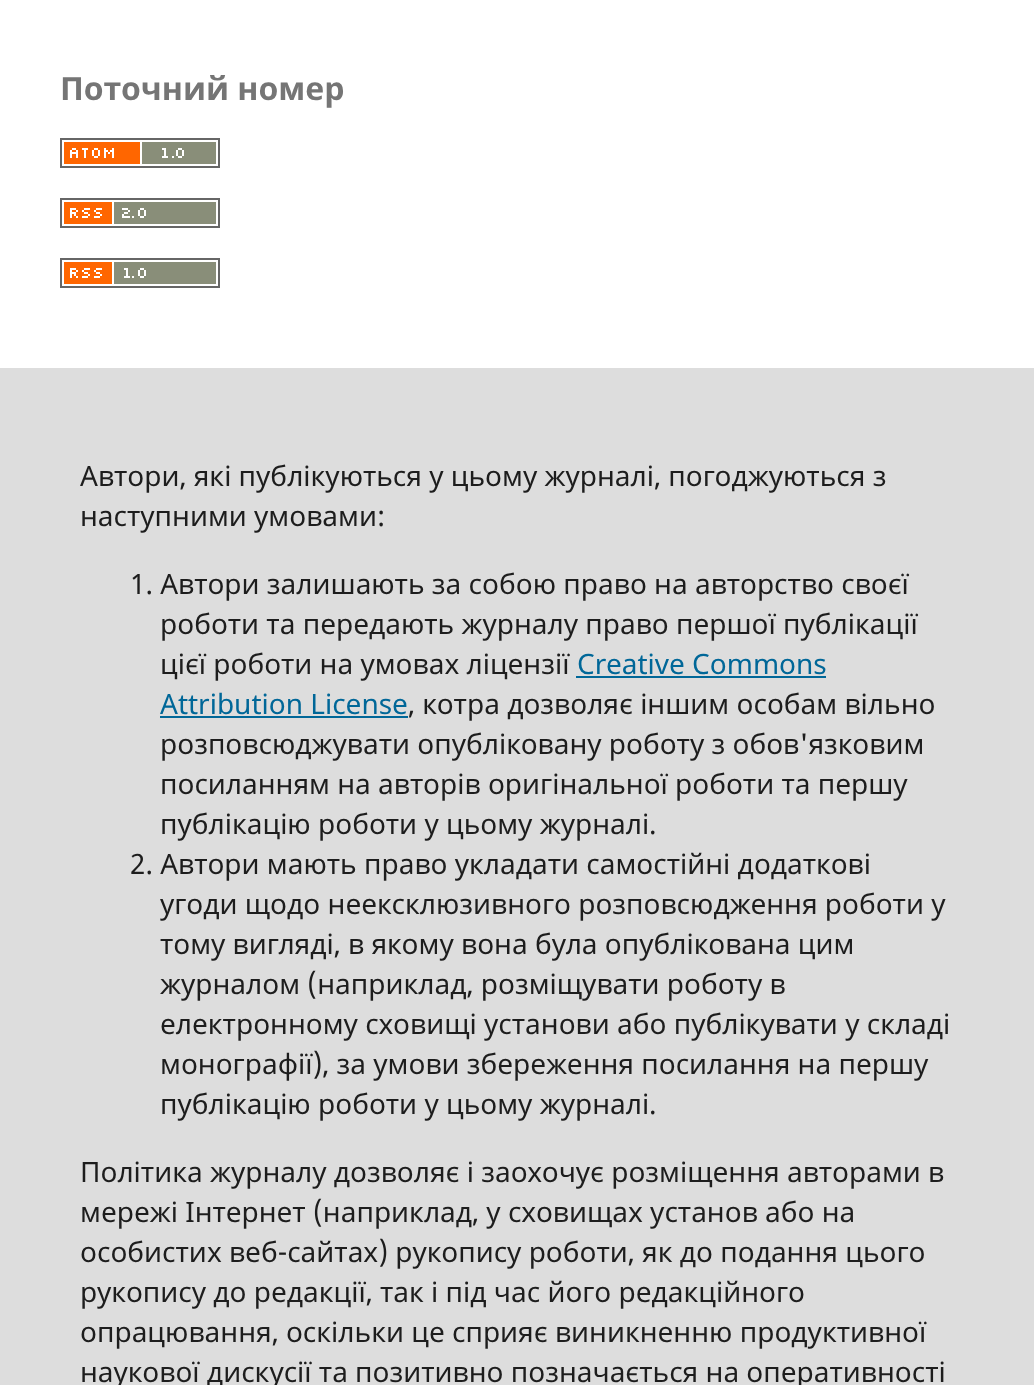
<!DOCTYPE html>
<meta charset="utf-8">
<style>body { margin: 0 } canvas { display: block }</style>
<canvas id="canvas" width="1034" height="1385"></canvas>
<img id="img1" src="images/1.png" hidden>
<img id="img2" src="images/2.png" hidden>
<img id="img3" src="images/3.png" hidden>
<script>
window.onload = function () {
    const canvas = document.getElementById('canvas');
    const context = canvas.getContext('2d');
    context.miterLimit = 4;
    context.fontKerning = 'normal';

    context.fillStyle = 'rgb(255, 255, 255)';
    context.fillRect(0, 0, 1034, 1385);
    context.drawImage(document.getElementById('img1'), 60, 138, 160, 30);
    context.drawImage(document.getElementById('img2'), 60, 198, 160, 30);
    context.drawImage(document.getElementById('img3'), 60, 258, 160, 30);
    context.fillStyle = 'rgb(221, 221, 221)';
    context.fillRect(0, 368, 1034, 1017);
    context.fillStyle = 'rgb(0, 103, 152)';
    context.fillRect(576, 676, 250, 2);
    context.fillRect(160, 716, 248, 2);
    context.font = 'bold 32px Noto Sans';
    context.fillStyle = 'rgb(117, 117, 117)';
    context.fillText('Поточний номер', 60, 100);
    context.font = '28px Noto Sans';
    context.fillStyle = 'rgb(29, 29, 29)';
    context.fillText('Автори, які публікуються у цьому журналі, погоджуються з', 80, 486);
    context.fillText('наступними умовами:', 80, 526);
    context.fillText('1. Автори залишають за собою право на авторство своєї', 130, 594);
    context.fillText('роботи та передають журналу право першої публікації', 160, 634);
    context.fillText('цієї роботи на умовах ліцензії', 160, 674);
    context.fillStyle = 'rgb(0, 103, 152)';
    context.fillText('Creative Commons', 577, 674);
    context.fillText('Attribution License', 160, 714);
    context.fillStyle = 'rgb(29, 29, 29)';
    context.fillText(', котра дозволяє іншим особам вільно', 408, 714);
    context.fillText('розповсюджувати опубліковану роботу з обов\'язковим', 160, 754);
    context.fillText('посиланням на авторів оригінальної роботи та першу', 160, 794);
    context.fillText('публікацію роботи у цьому журналі.', 160, 834);
    context.fillText('2. Автори мають право укладати самостійні додаткові', 130, 874);
    context.fillText('угоди щодо неексклюзивного розповсюдження роботи у', 160, 914);
    context.fillText('тому вигляді, в якому вона була опублікована цим', 160, 954);
    context.fillText('журналом (наприклад, розміщувати роботу в', 160, 994);
    context.fillText('електронному сховищі установи або публікувати у складі', 160, 1034);
    context.fillText('монографії), за умови збереження посилання на першу', 160, 1074);
    context.fillText('публікацію роботи у цьому журналі.', 160, 1114);
    context.fillText('Політика журналу дозволяє і заохочує розміщення авторами в', 80, 1182);
    context.fillText('мережі Інтернет (наприклад, у сховищах установ або на', 80, 1222);
    context.fillText('особистих веб-сайтах) рукопису роботи, як до подання цього', 80, 1262);
    context.fillText('рукопису до редакції, так і під час його редакційного', 80, 1302);
    context.fillText('опрацювання, оскільки це сприяє виникненню продуктивної', 80, 1342);
    context.fillText('наукової дискусії та позитивно позначається на оперативності', 80, 1382);
};
</script>
